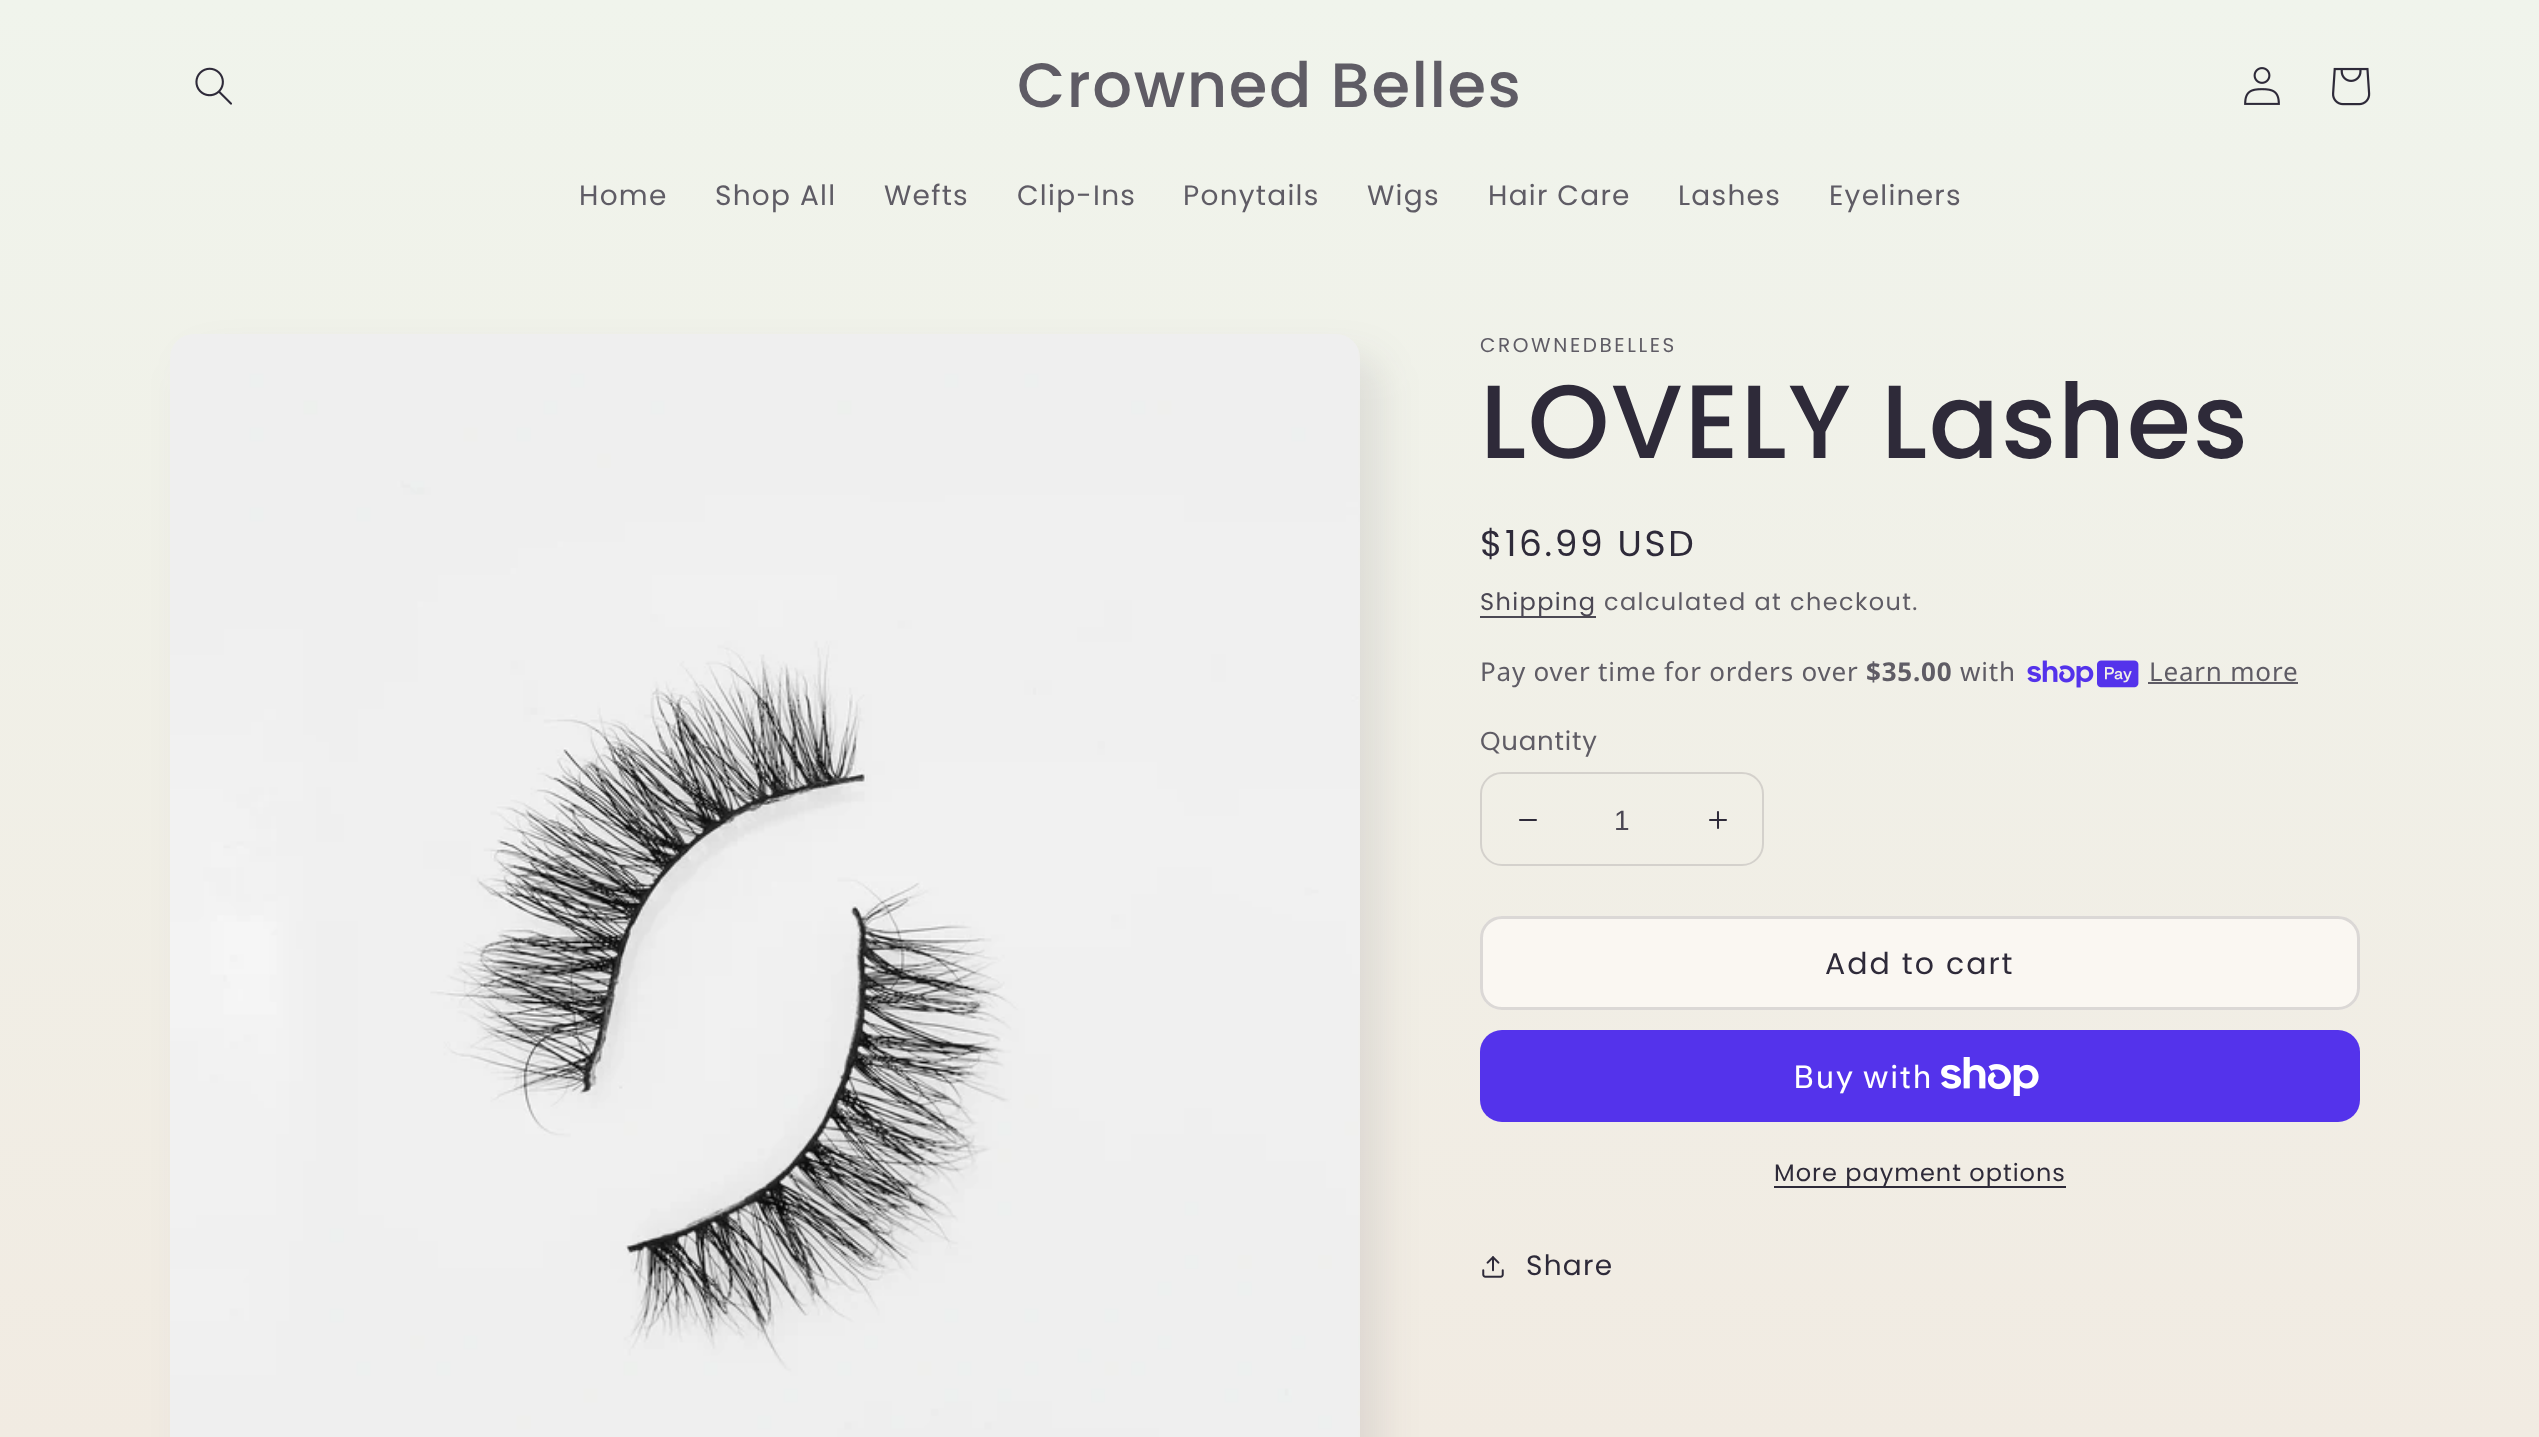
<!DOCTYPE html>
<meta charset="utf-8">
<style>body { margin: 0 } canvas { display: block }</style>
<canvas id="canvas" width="2539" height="1437"></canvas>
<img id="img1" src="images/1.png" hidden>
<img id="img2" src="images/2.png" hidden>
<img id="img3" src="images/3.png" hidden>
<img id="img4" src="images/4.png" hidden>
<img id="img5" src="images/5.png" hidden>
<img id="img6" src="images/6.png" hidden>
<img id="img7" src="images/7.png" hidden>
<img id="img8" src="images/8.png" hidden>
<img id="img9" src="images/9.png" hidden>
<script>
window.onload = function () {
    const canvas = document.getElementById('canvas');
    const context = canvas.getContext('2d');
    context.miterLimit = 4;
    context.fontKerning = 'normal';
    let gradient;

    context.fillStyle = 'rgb(255, 255, 255)';
    context.fillRect(0, 0, 2539, 1437);
    gradient = context.createLinearGradient(1270, 0, 1270, 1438);
    gradient.addColorStop(0, 'rgb(240, 244, 236)');
    gradient.addColorStop(1, 'rgb(241, 235, 226)');
    context.fillStyle = gradient;
    context.fillRect(0, 0, 2539, 1437);
    context.drawImage(document.getElementById('img1'), 195, 67, 37, 38);
    context.drawImage(document.getElementById('img2'), 2244, 67, 36, 38);
    context.drawImage(document.getElementById('img3'), 2332, 67, 39, 39);
    context.fillStyle = 'rgba(46, 42, 57, 0.1)';
    context.filter = 'blur(20px)';
    context.beginPath();
    context.roundRect(190, 358, 1190, 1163, 24);
    context.fill();
    context.filter = 'none';
    context.drawImage(document.getElementById('img4'), 170, 334, 1190, 1103);
    context.fillStyle = 'rgb(75, 72, 83)';
    context.fillRect(1480, 616, 116, 2);
    context.drawImage(document.getElementById('img5'), 2027, 660, 112, 28);
    context.fillStyle = 'rgb(95, 92, 101)';
    context.fillRect(2148, 682, 150, 2);
    context.drawImage(document.getElementById('img6'), 1519, 819, 18, 2);
    context.drawImage(document.getElementById('img7'), 1709, 811, 18, 18);
    context.beginPath();
    context.roundRect(1481, 773, 282, 92, 21);
    context.strokeStyle = 'rgb(212, 209, 204)';
    context.lineWidth = 2;
    context.stroke();
    context.fillStyle = 'rgb(250, 247, 242)';
    context.beginPath();
    context.roundRect(1480, 916, 880, 94, 22);
    context.fill();
    context.beginPath();
    context.roundRect(1481, 917, 878, 92, 21);
    context.strokeStyle = 'rgb(250, 247, 242)';
    context.stroke();
    context.beginPath();
    context.roundRect(1481.5, 917.5, 877, 91, 20.5);
    context.strokeStyle = 'rgba(46, 42, 57, 0.15)';
    context.lineWidth = 3;
    context.stroke();
    context.fillStyle = 'rgb(84, 51, 235)';
    context.beginPath();
    context.roundRect(1480, 1030, 880, 92, 22);
    context.fill();
    context.drawImage(document.getElementById('img8'), 1941, 1057, 98, 39);
    context.fillStyle = 'rgb(46, 42, 57)';
    context.fillRect(1774, 1186, 292, 2);
    context.drawImage(document.getElementById('img9'), 1482, 1256, 22, 22);
    context.letterSpacing = '1.5px';
    context.font = '500 62.5px Poppins';
    context.fillStyle = 'rgb(95, 92, 101)';
    context.fillText('Crowned Belles', 1017, 107);
    context.letterSpacing = '1.25px';
    context.font = '28px Poppins';
    context.fillText('Home', 579, 205);
    context.fillText('Shop All', 715, 205);
    context.fillText('Wefts', 884, 205);
    context.fillText('Clip-Ins', 1017, 205);
    context.fillText('Ponytails', 1183, 205);
    context.fillText('Wigs', 1367, 205);
    context.fillText('Hair Care', 1488, 205);
    context.fillText('Lashes', 1678, 205);
    context.fillText('Eyeliners', 1829, 205);
    context.letterSpacing = '2.6px';
    context.font = '20px Poppins';
    context.fillText('CROWNEDBELLES', 1480, 352);
    context.letterSpacing = '1.5px';
    context.font = '500 104px Poppins';
    context.fillStyle = 'rgb(46, 42, 57)';
    context.fillText('LOVELY Lashes', 1480, 458);
    context.letterSpacing = '2.6px';
    context.font = '36px Poppins';
    context.fillText('$16.99 USD', 1480, 556);
    context.letterSpacing = '1.4px';
    context.font = '24px Poppins';
    context.fillStyle = 'rgb(75, 71, 83)';
    context.fillText('Shipping', 1480, 610);
    context.fillStyle = 'rgb(95, 92, 101)';
    context.fillText('calculated at checkout.', 1604, 610);
    context.letterSpacing = '0.8px';
    context.font = '26px Noto Sans';
    context.fillText('Pay over time for orders over', 1480, 681);
    context.font = 'bold 26px Noto Sans';
    context.fillText('$35.00', 1866, 681);
    context.font = '26px Noto Sans';
    context.fillText('with', 1960, 681);
    context.fillText('Learn more', 2149, 681);
    context.font = '26px Poppins';
    context.fillText('Quantity', 1480, 750);
    context.letterSpacing = '0px';
    context.font = '28px Liberation Sans';
    context.fillStyle = 'rgb(75, 71, 83)';
    context.fillText('1', 1614, 830);
    context.letterSpacing = '2px';
    context.font = '30px Poppins';
    context.fillStyle = 'rgb(46, 42, 57)';
    context.fillText('Add to cart', 1825, 974);
    context.letterSpacing = '1.25px';
    context.font = '32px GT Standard';
    context.fillStyle = 'rgb(255, 255, 255)';
    context.fillText('Buy with', 1793, 1088);
    context.letterSpacing = '1px';
    context.font = '24px Poppins';
    context.fillStyle = 'rgb(46, 42, 57)';
    context.fillText('More payment options', 1774, 1181);
    context.letterSpacing = '1.25px';
    context.font = '28px Poppins';
    context.fillText('Share', 1526, 1275);
};
</script>
